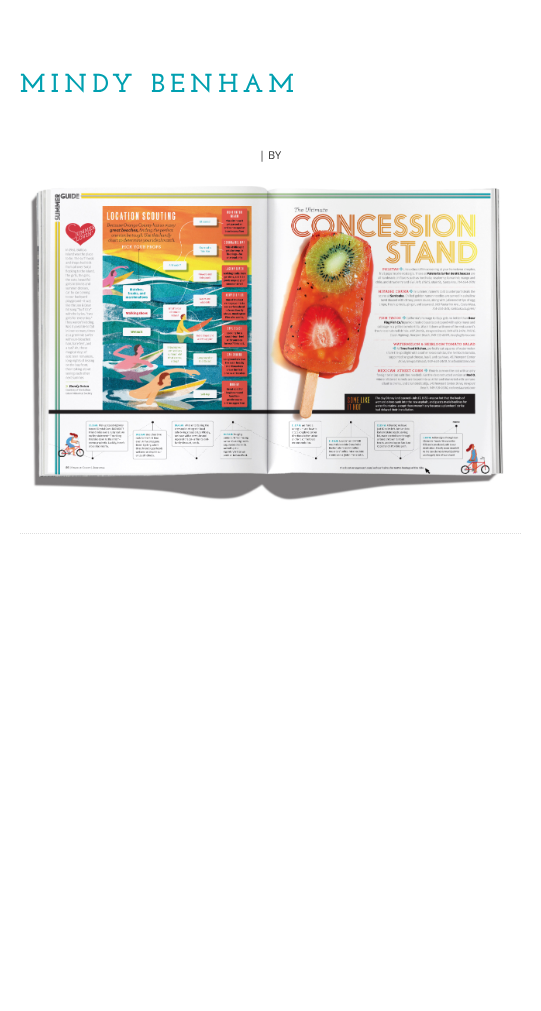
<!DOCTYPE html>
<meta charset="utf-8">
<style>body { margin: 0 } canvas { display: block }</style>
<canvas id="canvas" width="541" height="1011"></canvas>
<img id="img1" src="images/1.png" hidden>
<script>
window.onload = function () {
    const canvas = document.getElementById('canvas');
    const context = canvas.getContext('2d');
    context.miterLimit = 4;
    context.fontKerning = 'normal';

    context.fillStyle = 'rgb(255, 255, 255)';
    context.fillRect(0, 0, 541, 1011);
    context.beginPath();
    context.moveTo(20, 533.5);
    context.lineTo(521, 533.5);
    context.strokeStyle = 'rgb(221, 221, 221)';
    context.setLineDash([1, 1]);
    context.stroke();
    context.drawImage(document.getElementById('img1'), 30, 186, 474, 315);
    context.letterSpacing = '5.25px';
    context.font = 'bold 26px Josefin Slab';
    context.fillStyle = 'rgb(0, 160, 176)';
    context.fillText('MINDY BENHAM', 20, 92);
    context.letterSpacing = '0px';
    context.font = '11px Open Sans';
    context.fillStyle = 'rgb(55, 55, 55)';
    context.fillText('| BY', 259, 159);
};
</script>
